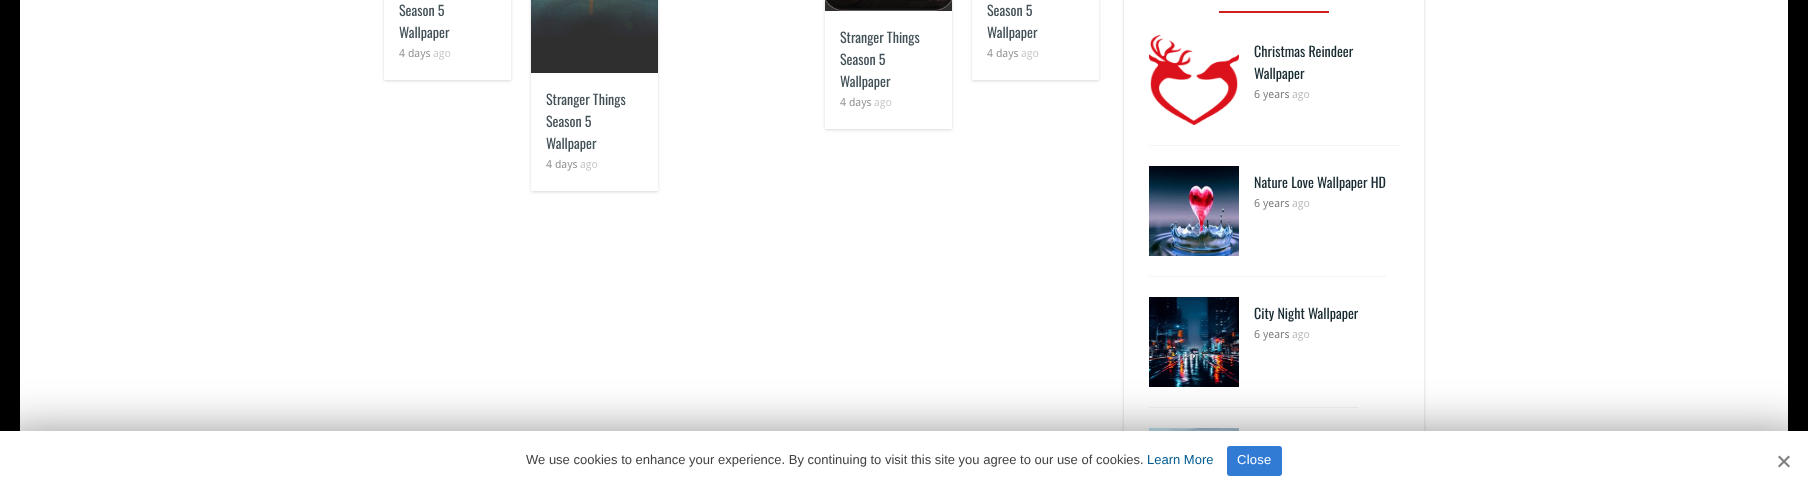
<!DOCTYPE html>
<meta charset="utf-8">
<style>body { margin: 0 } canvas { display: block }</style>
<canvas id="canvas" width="1808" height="491"></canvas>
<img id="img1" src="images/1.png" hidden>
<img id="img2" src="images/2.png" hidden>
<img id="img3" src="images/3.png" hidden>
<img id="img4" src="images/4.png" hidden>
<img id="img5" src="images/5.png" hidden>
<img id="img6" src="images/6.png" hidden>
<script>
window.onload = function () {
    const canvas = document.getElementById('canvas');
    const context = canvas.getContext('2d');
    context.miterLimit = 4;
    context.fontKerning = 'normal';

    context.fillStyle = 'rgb(0, 0, 0)';
    context.fillRect(0, 0, 1808, 491);
    context.fillStyle = 'rgb(255, 255, 255)';
    context.fillRect(20, 0, 1768, 431);
    context.save();
    context.beginPath();
    context.moveTo(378, 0);
    context.lineTo(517, 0);
    context.lineTo(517, 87);
    context.lineTo(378, 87);
    context.closePath();
    context.moveTo(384, -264);
    context.lineTo(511, -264);
    context.lineTo(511, 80);
    context.lineTo(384, 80);
    context.closePath();
    context.clip('evenodd');
    context.fillStyle = 'rgba(74, 67, 67, 0.2)';
    context.filter = 'blur(1.5px)';
    context.beginPath();
    context.rect(384, -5, 127, 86);
    context.fill();
    context.filter = 'none';
    context.restore();
    context.save();
    context.beginPath();
    context.moveTo(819, 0);
    context.lineTo(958, 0);
    context.lineTo(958, 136);
    context.lineTo(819, 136);
    context.closePath();
    context.moveTo(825, -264);
    context.lineTo(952, -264);
    context.lineTo(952, 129);
    context.lineTo(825, 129);
    context.closePath();
    context.clip('evenodd');
    context.fillStyle = 'rgba(74, 67, 67, 0.2)';
    context.filter = 'blur(1.5px)';
    context.beginPath();
    context.rect(825, -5, 127, 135);
    context.fill();
    context.filter = 'none';
    context.restore();
    context.fillStyle = 'rgb(46, 46, 46)';
    context.fillRect(825, 0, 127, 11);
    context.drawImage(document.getElementById('img1'), 825, 0, 127, 11);
    context.save();
    context.beginPath();
    context.moveTo(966, 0);
    context.lineTo(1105, 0);
    context.lineTo(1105, 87);
    context.lineTo(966, 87);
    context.closePath();
    context.moveTo(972, -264);
    context.lineTo(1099, -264);
    context.lineTo(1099, 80);
    context.lineTo(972, 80);
    context.closePath();
    context.clip('evenodd');
    context.fillStyle = 'rgba(74, 67, 67, 0.2)';
    context.filter = 'blur(1.5px)';
    context.beginPath();
    context.rect(972, -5, 127, 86);
    context.fill();
    context.filter = 'none';
    context.restore();
    context.save();
    context.beginPath();
    context.moveTo(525, 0);
    context.lineTo(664, 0);
    context.lineTo(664, 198);
    context.lineTo(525, 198);
    context.closePath();
    context.moveTo(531, -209);
    context.lineTo(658, -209);
    context.lineTo(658, 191);
    context.lineTo(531, 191);
    context.closePath();
    context.clip('evenodd');
    context.fillStyle = 'rgba(74, 67, 67, 0.2)';
    context.filter = 'blur(1.5px)';
    context.beginPath();
    context.rect(531, -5, 127, 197);
    context.fill();
    context.filter = 'none';
    context.restore();
    context.drawImage(document.getElementById('img2'), 531, 0, 127, 73);
    context.save();
    context.beginPath();
    context.moveTo(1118, 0);
    context.lineTo(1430, 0);
    context.lineTo(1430, 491);
    context.lineTo(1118, 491);
    context.closePath();
    context.moveTo(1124, -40);
    context.lineTo(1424, -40);
    context.lineTo(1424, 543);
    context.lineTo(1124, 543);
    context.closePath();
    context.clip('evenodd');
    context.fillStyle = 'rgba(34, 25, 25, 0.2)';
    context.filter = 'blur(1.5px)';
    context.beginPath();
    context.rect(1124, -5, 300, 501);
    context.fill();
    context.filter = 'none';
    context.restore();
    context.fillStyle = 'rgb(208, 29, 29)';
    context.fillRect(1219, 11, 110, 2);
    context.fillStyle = 'rgb(245, 244, 244)';
    context.fillRect(1149, 145, 250, 1);
    context.drawImage(document.getElementById('img3'), 1149, 35, 90, 90);
    context.fillRect(1149, 276, 237, 1);
    context.drawImage(document.getElementById('img4'), 1149, 166, 90, 90);
    context.fillRect(1149, 407, 209, 1);
    context.drawImage(document.getElementById('img5'), 1149, 297, 90, 90);
    context.drawImage(document.getElementById('img6'), 1149, 428, 90, 3);
    context.fillStyle = 'rgba(0, 0, 0, 0.5)';
    context.filter = 'blur(25px)';
    context.beginPath();
    context.rect(0, 436, 1808, 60);
    context.fill();
    context.filter = 'none';
    context.fillStyle = 'rgb(255, 255, 255)';
    context.fillRect(0, 431, 1808, 60);
    context.fillStyle = 'rgb(49, 123, 213)';
    context.beginPath();
    context.roundRect(1227, 446, 55, 30, 3);
    context.fill();
    context.fillStyle = 'rgb(128, 128, 128)';
    context.beginPath();
    context.moveTo(1788.5, 455.5);
    context.lineTo(1790, 457);
    context.lineTo(1779.5, 467.5);
    context.lineTo(1778, 466);
    context.closePath();
    context.fill();
    context.beginPath();
    context.moveTo(1778, 457);
    context.lineTo(1779.5, 455.5);
    context.lineTo(1790, 466);
    context.lineTo(1788.5, 467.5);
    context.closePath();
    context.fill();
    context.font = '14px Oswald';
    context.fillStyle = 'rgb(67, 81, 88)';
    context.fillText('Season 5', 399, 16);
    context.fillText('Wallpaper', 399, 38);
    context.font = '11px Droid Sans';
    context.fillStyle = 'rgb(150, 150, 150)';
    context.fillText('4 days', 399, 57);
    context.fillStyle = 'rgb(202, 202, 202)';
    context.fillText('ago', 433, 57);
    context.font = '14px Oswald';
    context.fillStyle = 'rgb(67, 81, 88)';
    context.fillText('Stranger Things', 840, 43);
    context.fillText('Season 5', 840, 65);
    context.fillText('Wallpaper', 840, 87);
    context.font = '11px Droid Sans';
    context.fillStyle = 'rgb(150, 150, 150)';
    context.fillText('4 days', 840, 106);
    context.fillStyle = 'rgb(202, 202, 202)';
    context.fillText('ago', 874, 106);
    context.font = '14px Oswald';
    context.fillStyle = 'rgb(67, 81, 88)';
    context.fillText('Season 5', 987, 16);
    context.fillText('Wallpaper', 987, 38);
    context.font = '11px Droid Sans';
    context.fillStyle = 'rgb(150, 150, 150)';
    context.fillText('4 days', 987, 57);
    context.fillStyle = 'rgb(202, 202, 202)';
    context.fillText('ago', 1021, 57);
    context.font = '14px Oswald';
    context.fillStyle = 'rgb(67, 81, 88)';
    context.fillText('Stranger Things', 546, 105);
    context.fillText('Season 5', 546, 127);
    context.fillText('Wallpaper', 546, 149);
    context.font = '11px Droid Sans';
    context.fillStyle = 'rgb(150, 150, 150)';
    context.fillText('4 days', 546, 168);
    context.fillStyle = 'rgb(202, 202, 202)';
    context.fillText('ago', 580, 168);
    context.font = '14px Oswald';
    context.fillStyle = 'rgb(25, 43, 51)';
    context.fillText('Christmas Reindeer', 1254, 57);
    context.fillText('Wallpaper', 1254, 79);
    context.font = '11px Droid Sans';
    context.fillStyle = 'rgb(127, 127, 127)';
    context.fillText('6 years', 1254, 98);
    context.fillStyle = 'rgb(190, 190, 190)';
    context.fillText('ago', 1292, 98);
    context.font = '14px Oswald';
    context.fillStyle = 'rgb(25, 43, 51)';
    context.fillText('Nature Love Wallpaper HD', 1254, 188);
    context.font = '11px Droid Sans';
    context.fillStyle = 'rgb(127, 127, 127)';
    context.fillText('6 years', 1254, 207);
    context.fillStyle = 'rgb(190, 190, 190)';
    context.fillText('ago', 1292, 207);
    context.font = '14px Oswald';
    context.fillStyle = 'rgb(25, 43, 51)';
    context.fillText('City Night Wallpaper', 1254, 319);
    context.font = '11px Droid Sans';
    context.fillStyle = 'rgb(127, 127, 127)';
    context.fillText('6 years', 1254, 338);
    context.fillStyle = 'rgb(190, 190, 190)';
    context.fillText('ago', 1292, 338);
    context.font = '13px Liberation Sans';
    context.fillStyle = 'rgb(65, 65, 65)';
    context.fillText('We use cookies to enhance your experience. By continuing to visit this site you agree to our use of cookies.', 526, 464);
    context.fillStyle = 'rgb(0, 91, 144)';
    context.fillText('Learn More', 1147, 464);
    context.letterSpacing = '0.25px';
    context.fillStyle = 'rgb(255, 255, 255)';
    context.fillText('Close', 1237, 464);
};
</script>
